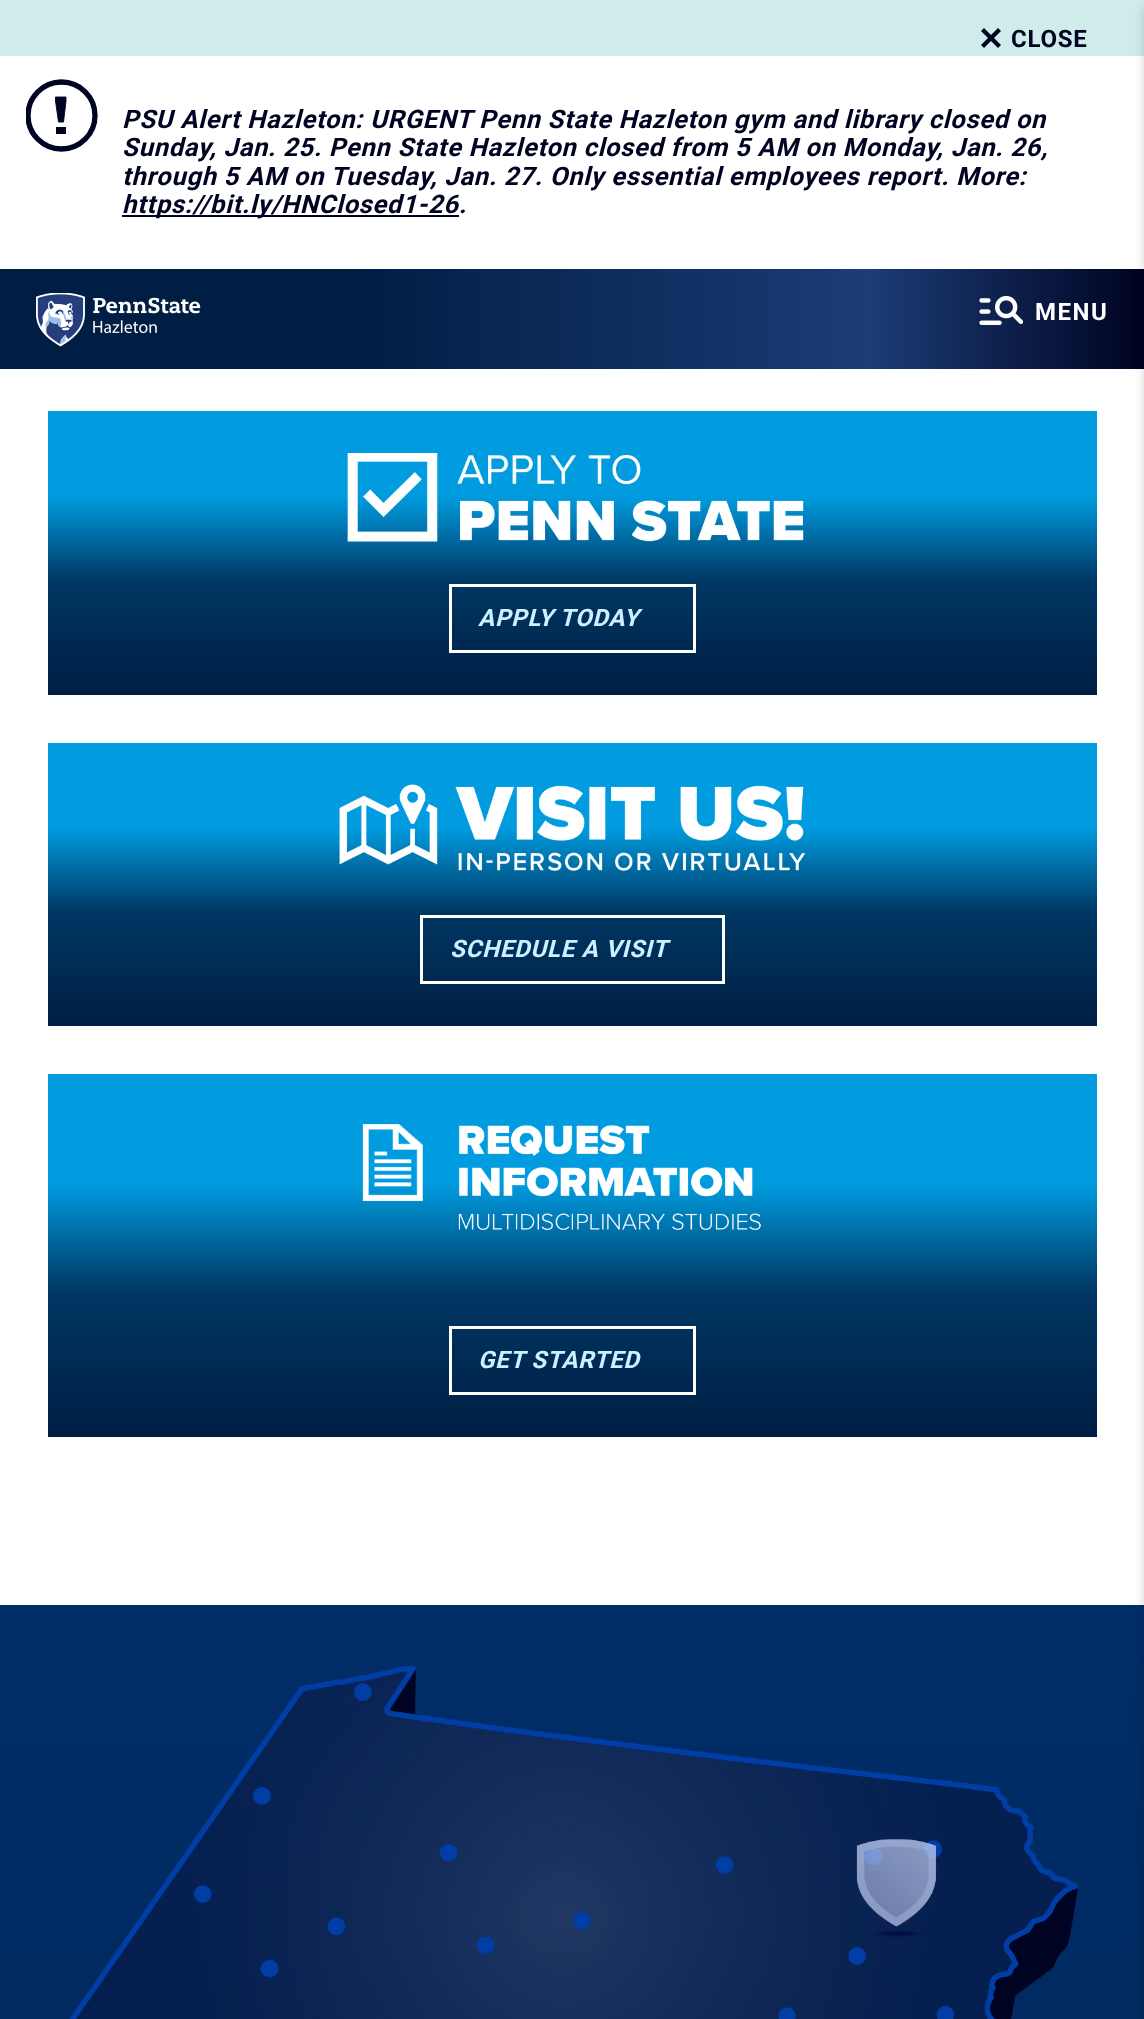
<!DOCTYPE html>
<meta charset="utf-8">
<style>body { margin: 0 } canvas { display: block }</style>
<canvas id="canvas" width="1144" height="2019"></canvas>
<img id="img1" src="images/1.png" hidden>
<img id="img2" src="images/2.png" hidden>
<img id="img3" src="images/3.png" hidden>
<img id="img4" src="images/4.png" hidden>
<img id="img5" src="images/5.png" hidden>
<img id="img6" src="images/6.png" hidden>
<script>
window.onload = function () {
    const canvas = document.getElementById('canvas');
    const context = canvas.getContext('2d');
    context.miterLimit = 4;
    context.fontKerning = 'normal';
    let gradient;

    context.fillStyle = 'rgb(255, 255, 255)';
    context.fillRect(0, 0, 1144, 2019);
    context.fillStyle = 'rgb(207, 236, 235)';
    context.fillRect(0, 0, 1144, 56);
    context.fillStyle = 'rgb(0, 3, 33)';
    context.beginPath();
    context.moveTo(998, 28);
    context.lineTo(1001, 31);
    context.lineTo(984, 48);
    context.lineTo(981, 45);
    context.closePath();
    context.fill();
    context.beginPath();
    context.moveTo(1001, 45);
    context.lineTo(998, 48);
    context.lineTo(981, 31);
    context.lineTo(984, 28);
    context.closePath();
    context.fill();
    context.save();
    context.beginPath();
    context.rect(26, 56, 72, 120);
    context.clip();
    context.beginPath();
    context.arc(61.5, 115.5, 33.5, 0, 2 * Math.PI);
    context.strokeStyle = 'rgb(0, 3, 33)';
    context.lineWidth = 5.3;
    context.stroke();
    context.restore();
    context.fillRect(56, 127, 10, 7);
    context.beginPath();
    context.moveTo(63.5, 122);
    context.lineTo(58.5, 122);
    context.lineTo(55.5, 101);
    context.lineTo(55.5, 97);
    context.lineTo(66, 97);
    context.lineTo(66, 101);
    context.closePath();
    context.fill();
    context.strokeStyle = 'rgb(0, 3, 33)';
    context.lineWidth = 0.9;
    context.stroke();
    context.fillRect(122, 215, 337, 2);
    gradient = context.createLinearGradient(0, 319, 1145, 319);
    gradient.addColorStop(0, 'rgb(0, 30, 68)');
    gradient.addColorStop(0.31, 'rgb(0, 30, 68)');
    gradient.addColorStop(0.76, 'rgb(27, 60, 118)');
    gradient.addColorStop(1, 'rgb(0, 3, 33)');
    context.fillStyle = gradient;
    context.fillRect(0, 269, 1144, 100);
    context.drawImage(document.getElementById('img1'), 36, 293, 165, 54);
    context.drawImage(document.getElementById('img2'), 979, 295, 45, 30);
    gradient = context.createLinearGradient(572, 1605, 572, 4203);
    gradient.addColorStop(0, 'rgb(0, 46, 105)');
    gradient.addColorStop(0.65, 'rgb(0, 30, 68)');
    gradient.addColorStop(1, 'rgb(0, 30, 68)');
    context.fillStyle = gradient;
    context.fillRect(0, 1605, 1144, 414);
    context.fillStyle = 'rgba(0, 0, 0, 0.2)';
    context.filter = 'blur(6px)';
    context.beginPath();
    context.rect(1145, 6, 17, 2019);
    context.fill();
    context.filter = 'none';
    gradient = context.createLinearGradient(572, 411, 572, 695);
    gradient.addColorStop(0, 'rgb(0, 156, 223)');
    gradient.addColorStop(0.3, 'rgb(0, 156, 223)');
    gradient.addColorStop(0.6, 'rgb(0, 55, 99)');
    gradient.addColorStop(1, 'rgb(0, 30, 68)');
    context.fillStyle = gradient;
    context.fillRect(48, 411, 1049, 284);
    context.drawImage(document.getElementById('img3'), 347, 453, 457, 89);
    context.strokeStyle = 'rgb(255, 255, 255)';
    context.lineWidth = 3;
    context.strokeRect(450.5, 585.5, 244, 66);
    gradient = context.createLinearGradient(572, 742, 572, 1026);
    gradient.addColorStop(0, 'rgb(0, 156, 223)');
    gradient.addColorStop(0.3, 'rgb(0, 156, 223)');
    gradient.addColorStop(0.6, 'rgb(0, 55, 99)');
    gradient.addColorStop(1, 'rgb(0, 30, 68)');
    context.fillStyle = gradient;
    context.fillRect(48, 743, 1049, 283);
    context.drawImage(document.getElementById('img4'), 339, 784, 467, 87);
    context.strokeRect(421.5, 916.5, 302, 66);
    gradient = context.createLinearGradient(572, 1074, 572, 1437);
    gradient.addColorStop(0, 'rgb(0, 156, 223)');
    gradient.addColorStop(0.3, 'rgb(0, 156, 223)');
    gradient.addColorStop(0.6, 'rgb(0, 55, 99)');
    gradient.addColorStop(1, 'rgb(0, 30, 68)');
    context.fillStyle = gradient;
    context.fillRect(48, 1074, 1049, 363);
    context.drawImage(document.getElementById('img5'), 362, 1124, 399, 107);
    context.strokeRect(450.5, 1327.5, 244, 66);
    context.drawImage(document.getElementById('img6'), 69, 1665, 1009, 354);
    context.letterSpacing = '0.72px';
    context.font = 'bold 24px Roboto';
    context.fillStyle = 'rgb(0, 3, 33)';
    context.fillText('CLOSE', 1011, 47);
    context.font = 'italic bold 25.5px Roboto';
    context.fillText('PSU Alert Hazleton: URGENT Penn State Hazleton gym and library closed on', 122, 128);
    context.fillText('Sunday, Jan. 25. Penn State Hazleton closed from 5 AM on Monday, Jan. 26,', 122, 156);
    context.fillText('through 5 AM on Tuesday, Jan. 27. Only essential employees report. More:', 122, 185);
    context.fillText('https://bit.ly/HNClosed1-26.', 122, 213);
    context.letterSpacing = '1.5px';
    context.font = 'bold 24px Roboto';
    context.fillStyle = 'rgb(255, 255, 255)';
    context.fillText('MENU', 1035, 320);
    context.letterSpacing = '0.75px';
    context.font = 'italic bold 24px Roboto';
    context.fillStyle = 'rgb(204, 240, 255)';
    context.fillText('APPLY TODAY', 478, 626);
    context.fillText('SCHEDULE A VISIT', 450, 957);
    context.fillText('GET STARTED', 478, 1368);
};
</script>
